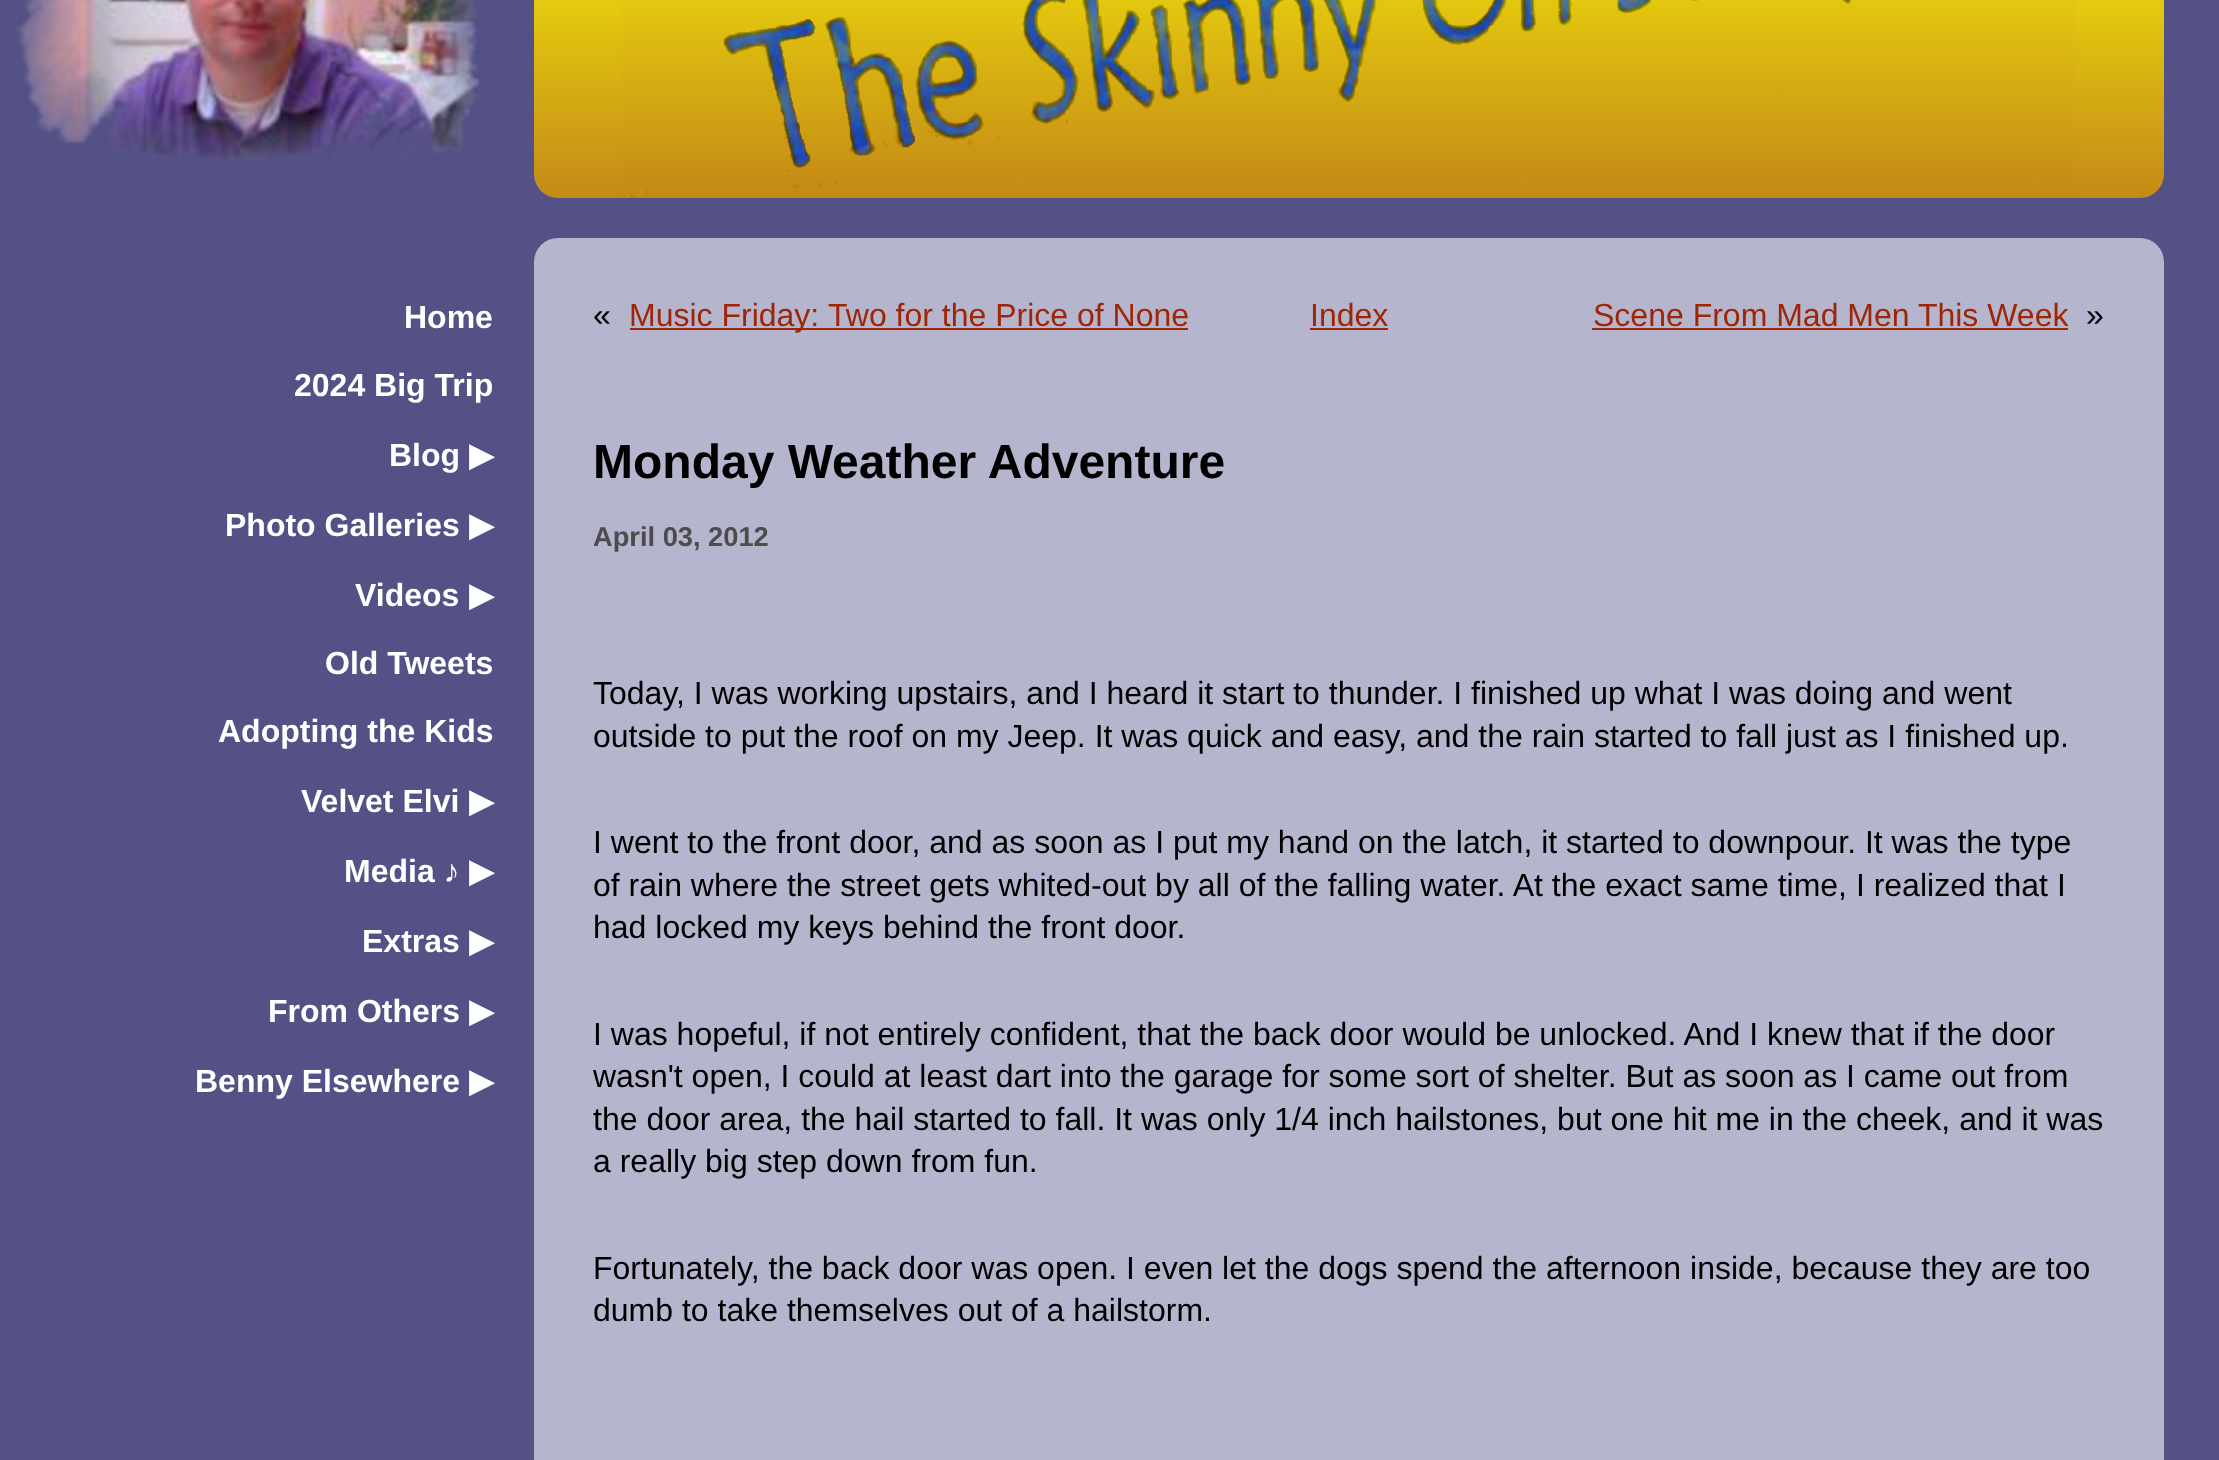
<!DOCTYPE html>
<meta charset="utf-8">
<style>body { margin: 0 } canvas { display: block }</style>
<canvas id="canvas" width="2219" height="1460"></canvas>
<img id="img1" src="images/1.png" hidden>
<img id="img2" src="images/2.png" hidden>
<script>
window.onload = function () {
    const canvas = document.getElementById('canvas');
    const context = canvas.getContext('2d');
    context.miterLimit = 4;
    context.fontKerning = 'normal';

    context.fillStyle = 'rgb(83, 81, 133)';
    context.fillRect(0, 0, 2219, 1460);
    context.drawImage(document.getElementById('img1'), 534, 0, 1630, 198);
    context.drawImage(document.getElementById('img2'), 16, 0, 465, 164);
    context.fillStyle = 'rgb(181, 181, 205)';
    context.beginPath();
    context.roundRect(534, 238, 1630, 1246, 24);
    context.fill();
    context.fillStyle = 'rgb(158, 38, 6)';
    context.fillRect(630, 328, 558, 2);
    context.fillRect(1310, 328, 78, 2);
    context.fillRect(1592, 328, 476, 2);
    context.font = 'bold 32px Liberation Sans';
    context.fillStyle = 'rgb(255, 255, 255)';
    context.fillText('Home', 404, 328);
    context.fillText('2024 Big Trip', 294, 396);
    context.fillText('Blog', 389, 466);
    context.font = 'bold 32px DejaVu Sans';
    context.fillText('▶︎', 469, 466);
    context.font = 'bold 32px Liberation Sans';
    context.fillText('Photo Galleries', 225, 536);
    context.font = 'bold 32px DejaVu Sans';
    context.fillText('▶︎', 469, 536);
    context.font = 'bold 32px Liberation Sans';
    context.fillText('Videos', 355, 606);
    context.font = 'bold 32px DejaVu Sans';
    context.fillText('▶︎', 469, 606);
    context.font = 'bold 32px Liberation Sans';
    context.fillText('Old Tweets', 325, 674);
    context.fillText('Adopting the Kids', 218, 742);
    context.fillText('Velvet Elvi', 301, 812);
    context.font = 'bold 32px DejaVu Sans';
    context.fillText('▶︎', 469, 812);
    context.font = 'bold 32px Liberation Sans';
    context.fillText('Media ♪', 344, 882);
    context.font = 'bold 32px DejaVu Sans';
    context.fillText('▶︎', 469, 882);
    context.font = 'bold 32px Liberation Sans';
    context.fillText('Extras', 362, 952);
    context.font = 'bold 32px DejaVu Sans';
    context.fillText('▶︎', 469, 952);
    context.font = 'bold 32px Liberation Sans';
    context.fillText('From Others', 268, 1022);
    context.font = 'bold 32px DejaVu Sans';
    context.fillText('▶︎', 469, 1022);
    context.font = 'bold 32px Liberation Sans';
    context.fillText('Benny Elsewhere', 195, 1092);
    context.font = 'bold 32px DejaVu Sans';
    context.fillText('▶︎', 469, 1092);
    context.font = '32px Liberation Sans';
    context.fillStyle = 'rgb(0, 0, 0)';
    context.fillText('«', 593, 326);
    context.fillStyle = 'rgb(158, 38, 6)';
    context.fillText('Music Friday:', 629, 326);
    context.fillText('Two for the Price of None', 828, 326);
    context.fillText('Index', 1310, 326);
    context.fillText('Scene From Mad Men This Week', 1593, 326);
    context.fillStyle = 'rgb(0, 0, 0)';
    context.fillText('»', 2086, 326);
    context.font = 'bold 48px Liberation Sans';
    context.fillText('Monday Weather Adventure', 593, 478);
    context.font = 'bold 27.25px Liberation Sans';
    context.fillStyle = 'rgb(76, 76, 76)';
    context.fillText('April 03, 2012', 593, 546);
    context.font = '32px Liberation Sans';
    context.fillStyle = 'rgb(0, 0, 0)';
    context.fillText('Today, I was working upstairs, and I heard it start to thunder. I finished up what I was doing and went', 593, 704);
    context.fillText('outside to put the roof on my Jeep. It was quick and easy, and the rain started to fall just as I finished up.', 593, 747);
    context.fillText('I went to the front door, and as soon as I put my hand on the latch, it started to downpour. It was the type', 593, 853);
    context.fillText('of rain where the street gets whited-out by all of the falling water. At the exact same time, I realized that I', 593, 896);
    context.fillText('had locked my keys behind the front door.', 593, 938);
    context.fillText('I was hopeful, if not entirely confident, that the back door would be unlocked. And I knew that if the door', 593, 1045);
    context.fillText('wasn\'t open, I could at least dart into the garage for some sort of shelter. But as soon as I came out from', 593, 1087);
    context.fillText('the door area, the hail started to fall. It was only 1/4 inch hailstones, but one hit me in the cheek, and it was', 593, 1130);
    context.fillText('a really big step down from fun.', 593, 1172);
    context.fillText('Fortunately, the back door was open. I even let the dogs spend the afternoon inside, because they are too', 593, 1279);
    context.fillText('dumb to take themselves out of a hailstorm.', 593, 1321);
};
</script>
